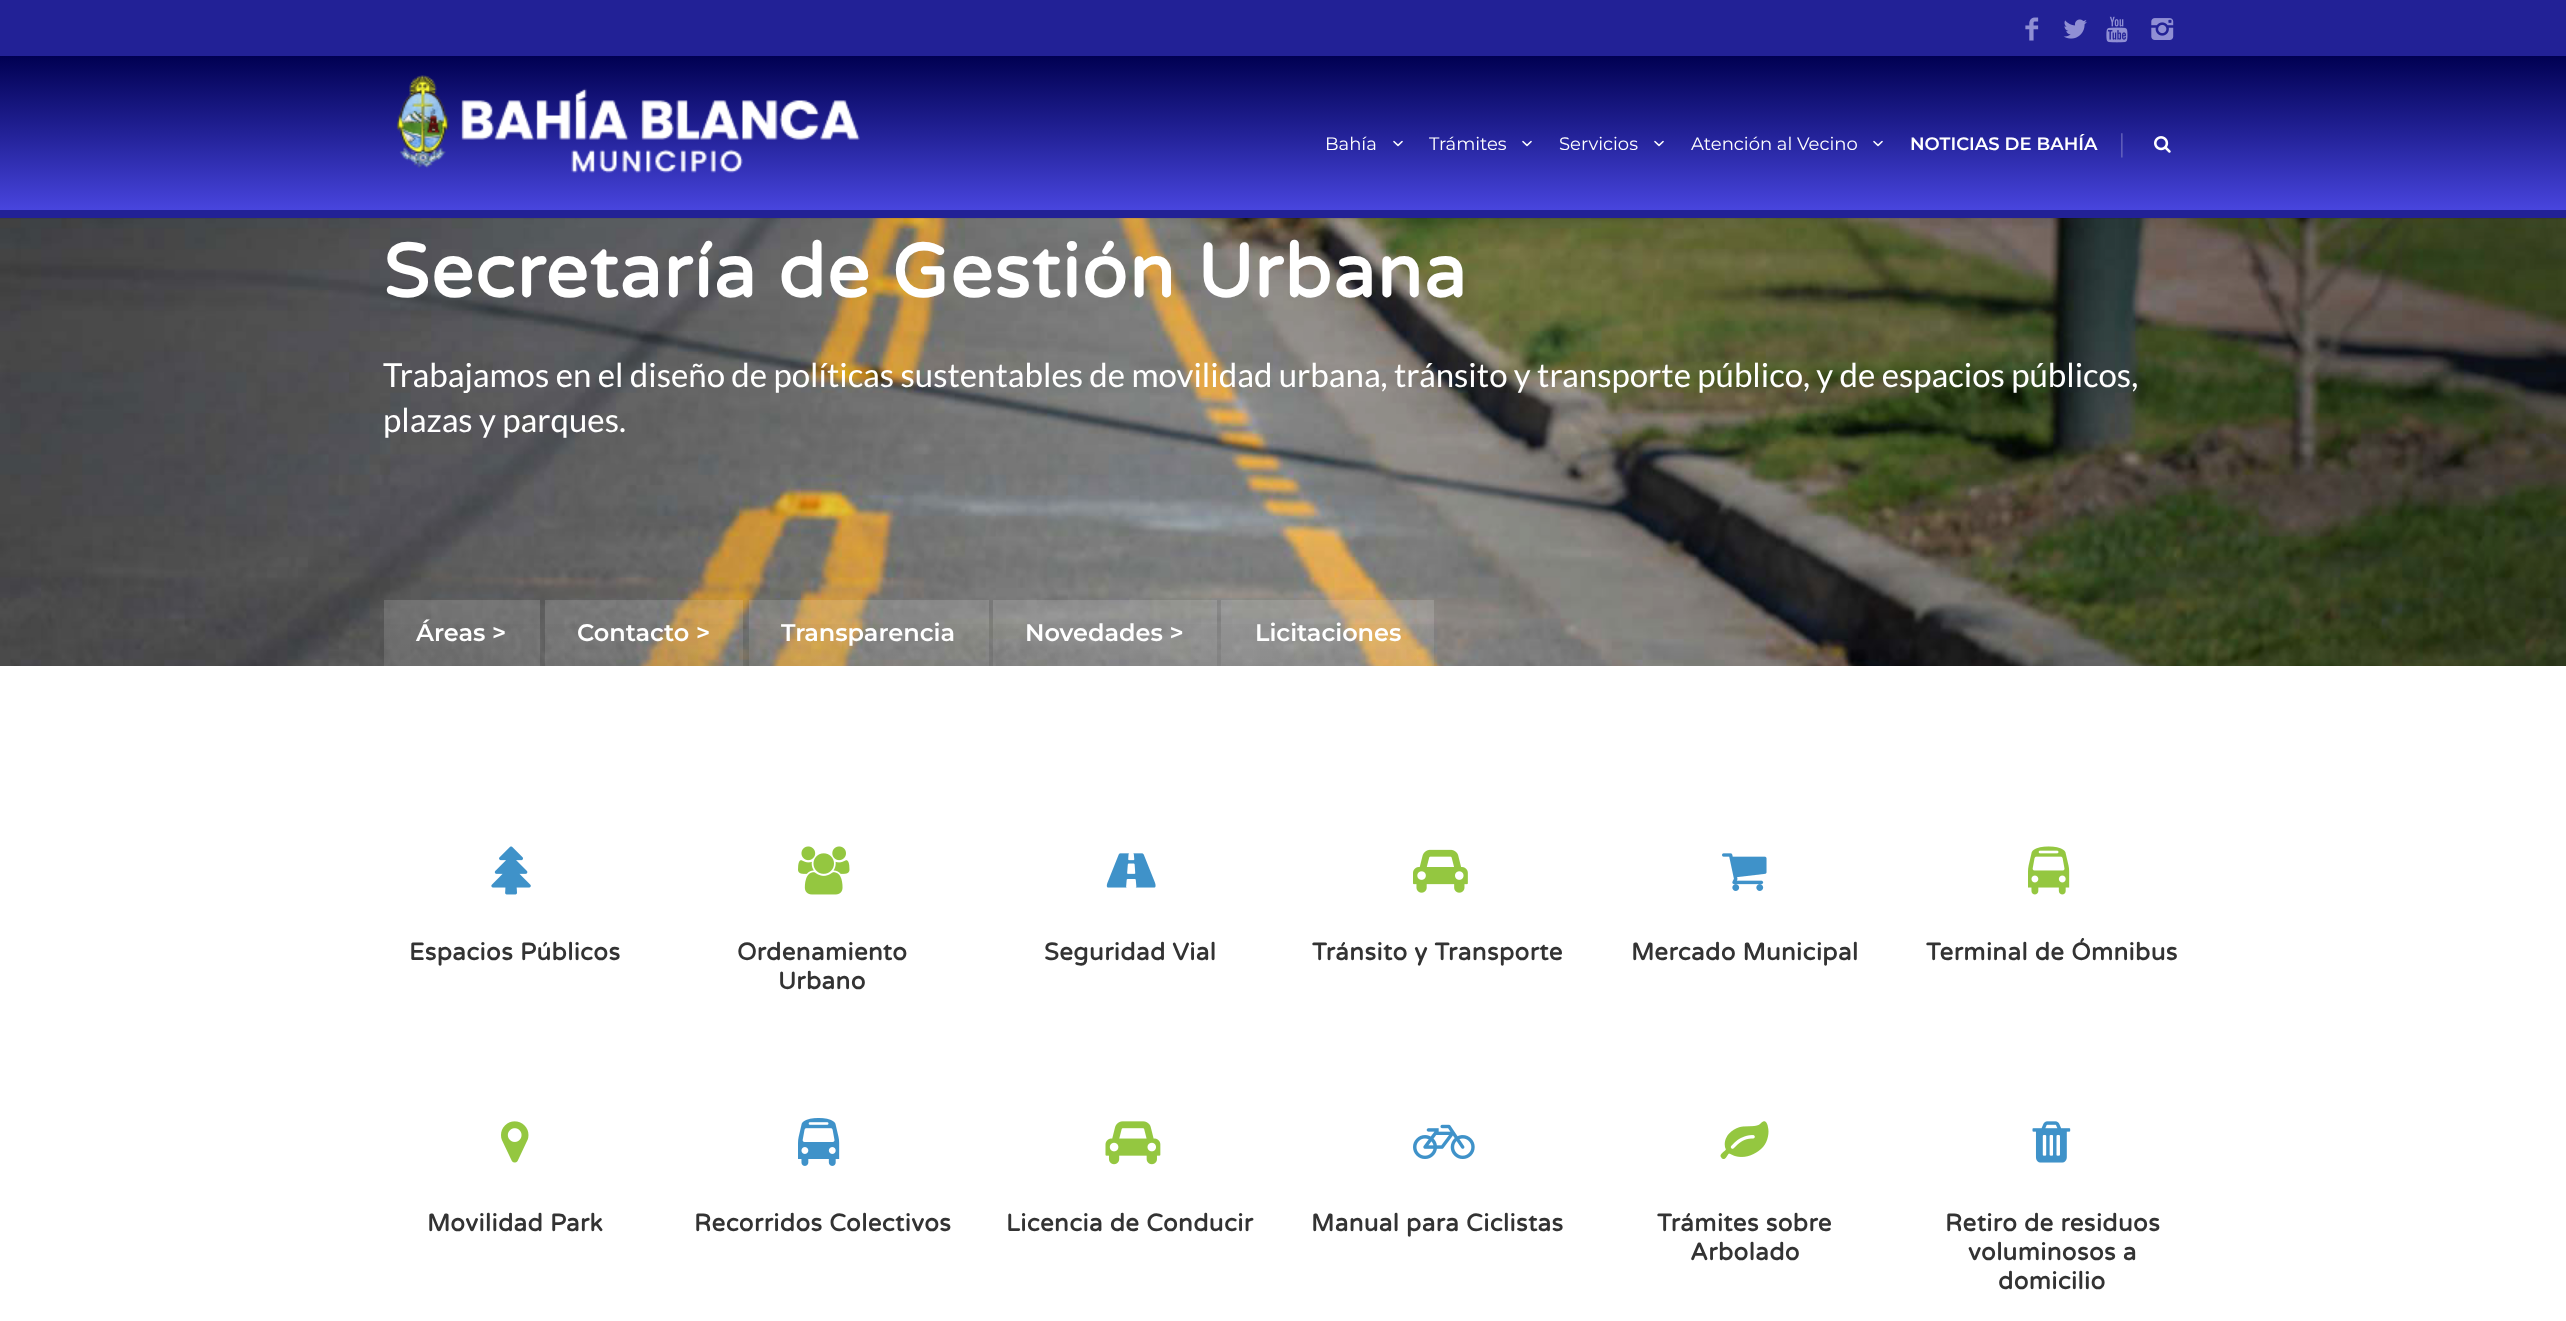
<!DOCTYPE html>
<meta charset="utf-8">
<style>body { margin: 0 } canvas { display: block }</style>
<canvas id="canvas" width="2566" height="1321"></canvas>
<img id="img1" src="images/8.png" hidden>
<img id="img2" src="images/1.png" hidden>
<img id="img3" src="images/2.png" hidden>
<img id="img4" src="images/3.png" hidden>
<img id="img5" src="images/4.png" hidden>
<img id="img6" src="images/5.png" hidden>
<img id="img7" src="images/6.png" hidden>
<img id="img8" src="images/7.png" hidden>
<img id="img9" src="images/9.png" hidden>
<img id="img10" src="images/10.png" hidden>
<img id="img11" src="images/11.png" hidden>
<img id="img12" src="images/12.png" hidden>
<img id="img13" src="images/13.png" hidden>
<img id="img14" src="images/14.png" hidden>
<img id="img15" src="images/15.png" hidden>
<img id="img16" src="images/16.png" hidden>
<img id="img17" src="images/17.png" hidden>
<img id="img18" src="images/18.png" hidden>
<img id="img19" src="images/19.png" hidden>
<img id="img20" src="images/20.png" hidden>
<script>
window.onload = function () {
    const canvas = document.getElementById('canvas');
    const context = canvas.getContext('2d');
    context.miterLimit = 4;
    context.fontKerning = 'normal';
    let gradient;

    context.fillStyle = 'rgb(255, 255, 255)';
    context.fillRect(0, 0, 2566, 1321);
    context.drawImage(document.getElementById('img1'), 0, 218, 2566, 448);
    context.strokeStyle = 'rgba(0, 0, 0, 0.05)';
    context.lineWidth = 2;
    context.strokeRect(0, 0, 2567, 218);
    context.fillStyle = 'rgb(34, 33, 150)';
    context.fillRect(0, 210, 2566, 8);
    context.fillRect(0, 0, 2566, 56);
    context.drawImage(document.getElementById('img2'), 2025, 17, 14, 24);
    context.drawImage(document.getElementById('img3'), 2063, 19, 24, 20);
    context.drawImage(document.getElementById('img4'), 2106, 16, 22, 27);
    context.drawImage(document.getElementById('img5'), 2151, 18, 23, 22);
    gradient = context.createLinearGradient(1283, 55, 1283, 210);
    gradient.addColorStop(0, 'rgb(0, 0, 81)');
    gradient.addColorStop(0.5, 'rgb(34, 33, 150)');
    gradient.addColorStop(1, 'rgb(72, 69, 222)');
    context.fillStyle = gradient;
    context.fillRect(0, 56, 2566, 154);
    context.drawImage(document.getElementById('img6'), 396, 75, 464, 98);
    context.drawImage(document.getElementById('img7'), 1393, 140, 10, 7);
    context.drawImage(document.getElementById('img7'), 1522, 140, 10, 7);
    context.drawImage(document.getElementById('img7'), 1654, 140, 10, 7);
    context.drawImage(document.getElementById('img7'), 1873, 140, 10, 7);
    context.drawImage(document.getElementById('img8'), 2154, 136, 17, 17);
    context.fillStyle = 'rgba(255, 255, 255, 0.15)';
    context.fillRect(384, 600, 156, 66);
    gradient = context.createLinearGradient(462, 600, 462, 666);
    gradient.addColorStop(0, 'rgba(0, 0, 0, 0)');
    gradient.addColorStop(1, 'rgba(0, 0, 0, 0.06)');
    context.fillStyle = gradient;
    context.fillRect(384, 624, 156, 42);
    context.fillStyle = 'rgba(255, 255, 255, 0.15)';
    context.fillRect(545, 600, 198, 66);
    gradient = context.createLinearGradient(644, 600, 644, 666);
    gradient.addColorStop(0, 'rgba(0, 0, 0, 0)');
    gradient.addColorStop(1, 'rgba(0, 0, 0, 0.06)');
    context.fillStyle = gradient;
    context.fillRect(545, 624, 198, 42);
    context.fillStyle = 'rgba(255, 255, 255, 0.15)';
    context.fillRect(749, 600, 240, 66);
    gradient = context.createLinearGradient(869, 600, 869, 666);
    gradient.addColorStop(0, 'rgba(0, 0, 0, 0)');
    gradient.addColorStop(1, 'rgba(0, 0, 0, 0.06)');
    context.fillStyle = gradient;
    context.fillRect(749, 624, 240, 42);
    context.fillStyle = 'rgba(255, 255, 255, 0.15)';
    context.fillRect(993, 600, 224, 66);
    gradient = context.createLinearGradient(1105, 600, 1105, 666);
    gradient.addColorStop(0, 'rgba(0, 0, 0, 0)');
    gradient.addColorStop(1, 'rgba(0, 0, 0, 0.06)');
    context.fillStyle = gradient;
    context.fillRect(993, 624, 224, 42);
    context.fillStyle = 'rgba(255, 255, 255, 0.15)';
    context.fillRect(1221, 600, 213, 66);
    gradient = context.createLinearGradient(1328, 600, 1328, 666);
    gradient.addColorStop(0, 'rgba(0, 0, 0, 0)');
    gradient.addColorStop(1, 'rgba(0, 0, 0, 0.06)');
    context.fillStyle = gradient;
    context.fillRect(1221, 624, 213, 42);
    context.drawImage(document.getElementById('img9'), 491, 846, 40, 49);
    context.drawImage(document.getElementById('img10'), 798, 846, 52, 49);
    context.drawImage(document.getElementById('img11'), 1106, 853, 50, 35);
    context.drawImage(document.getElementById('img12'), 1413, 849, 55, 44);
    context.drawImage(document.getElementById('img13'), 1722, 853, 45, 38);
    context.drawImage(document.getElementById('img14'), 2028, 846, 42, 49);
    context.drawImage(document.getElementById('img15'), 501, 1121, 28, 42);
    context.drawImage(document.getElementById('img16'), 798, 1118, 42, 48);
    context.drawImage(document.getElementById('img17'), 1105, 1121, 56, 44);
    context.drawImage(document.getElementById('img18'), 1413, 1124, 62, 35);
    context.drawImage(document.getElementById('img19'), 1720, 1121, 49, 38);
    context.drawImage(document.getElementById('img20'), 2032, 1121, 39, 42);
    context.font = '18px Montserrat';
    context.fillStyle = 'rgb(255, 255, 255)';
    context.fillText('Bahía', 1325, 150);
    context.fillText('Trámites', 1429, 150);
    context.fillText('Servicios', 1559, 150);
    context.fillText('Atención al Vecino', 1691, 150);
    context.font = '600 18px Montserrat';
    context.fillText('NOTICIAS DE BAHÍA', 1910, 150);
    context.font = '300 26px Lato';
    context.fillStyle = 'rgb(126, 125, 199)';
    context.fillText('|', 2118, 153);
    context.letterSpacing = '1.5px';
    context.font = 'bold 75px Varela Round';
    context.fillStyle = 'rgb(255, 255, 255)';
    context.fillText('Secretaría de Gestión Urbana', 383, 297);
    context.letterSpacing = '0px';
    context.font = '33px Lato';
    context.fillText('Trabajamos en el diseño de políticas sustentables de movilidad urbana, tránsito y transporte público, y de espacios públicos,', 383, 387);
    context.fillText('plazas y parques.', 383, 432);
    context.font = '600 24px Montserrat';
    context.fillText('Áreas >', 416, 641);
    context.fillText('Contacto >', 577, 641);
    context.fillText('Transparencia', 781, 641);
    context.fillText('Novedades >', 1025, 641);
    context.fillText('Licitaciones', 1255, 641);
    context.letterSpacing = '0.5px';
    context.font = 'bold 24px Varela Round';
    context.fillStyle = 'rgb(51, 51, 51)';
    context.fillText('Espacios Públicos', 409, 960);
    context.fillText('Ordenamiento', 737, 960);
    context.fillText('Urbano', 778, 989);
    context.fillText('Seguridad Vial', 1044, 960);
    context.fillText('Tránsito y Transporte', 1312, 960);
    context.fillText('Mercado Municipal', 1631, 960);
    context.fillText('Terminal de Ómnibus', 1926, 960);
    context.fillText('Movilidad Park', 427, 1231);
    context.fillText('Recorridos Colectivos', 694, 1231);
    context.fillText('Licencia de Conducir', 1006, 1231);
    context.fillText('Manual para Ciclistas', 1311, 1231);
    context.fillText('Trámites sobre', 1657, 1231);
    context.fillText('Arbolado', 1690, 1260);
    context.fillText('Retiro de residuos', 1945, 1231);
    context.fillText('voluminosos a', 1968, 1260);
    context.fillText('domicilio', 1998, 1289);
};
</script>
